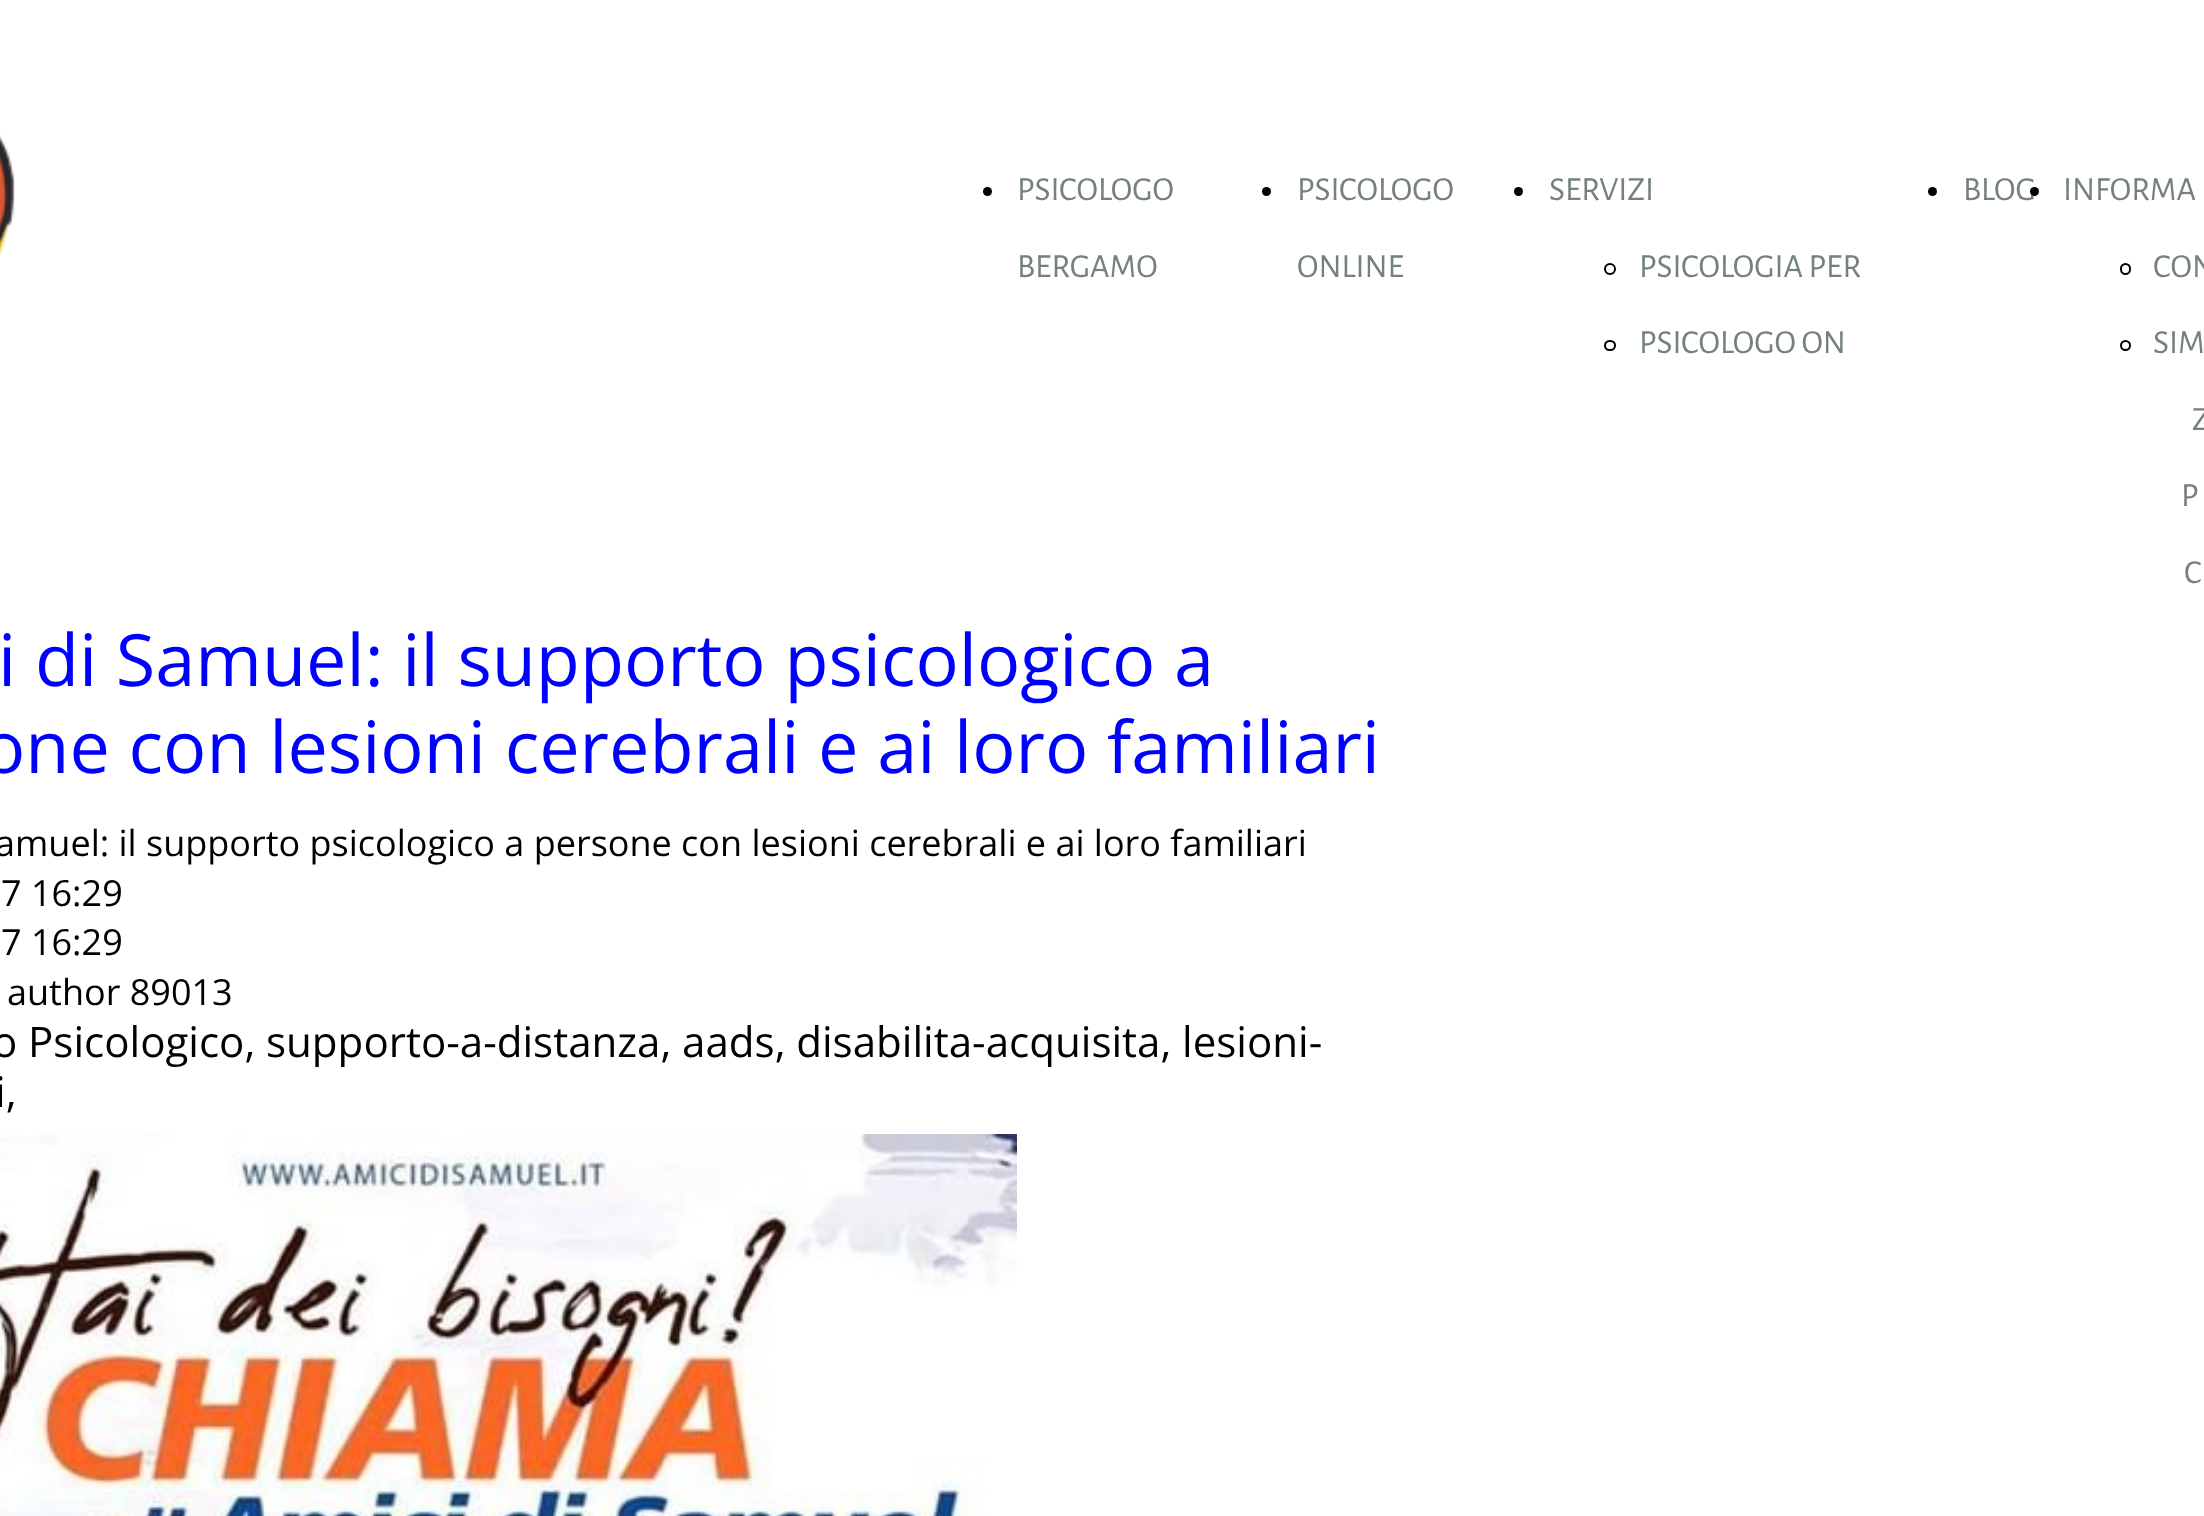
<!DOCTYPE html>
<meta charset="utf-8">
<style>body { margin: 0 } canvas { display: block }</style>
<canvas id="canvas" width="2204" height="1516"></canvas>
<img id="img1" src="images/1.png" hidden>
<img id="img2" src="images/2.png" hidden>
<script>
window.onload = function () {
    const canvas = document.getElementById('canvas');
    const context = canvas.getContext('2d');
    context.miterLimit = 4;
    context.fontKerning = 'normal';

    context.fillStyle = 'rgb(255, 255, 255)';
    context.fillRect(0, 0, 2204, 1516);
    context.drawImage(document.getElementById('img1'), 0, 134, 15, 124);
    context.fillStyle = 'rgb(0, 0, 0)';
    context.beginPath();
    context.arc(987.5, 191.5, 4.5, 0, 2 * Math.PI);
    context.fill();
    context.beginPath();
    context.arc(1266.5, 191.5, 4.5, 0, 2 * Math.PI);
    context.fill();
    context.beginPath();
    context.arc(1518.5, 191.5, 4.5, 0, 2 * Math.PI);
    context.fill();
    context.beginPath();
    context.arc(1610, 269, 5, 0, 2 * Math.PI);
    context.strokeStyle = 'rgb(0, 0, 0)';
    context.lineWidth = 2;
    context.stroke();
    context.beginPath();
    context.roundRect(1605, 341, 10, 9, 4.5);
    context.stroke();
    context.beginPath();
    context.arc(1932.5, 191.5, 4.5, 0, 2 * Math.PI);
    context.fill();
    context.beginPath();
    context.roundRect(2121, 264, 9, 10, 4.5);
    context.stroke();
    context.beginPath();
    context.arc(2125.5, 345.5, 4.5, 0, 2 * Math.PI);
    context.stroke();
    context.drawImage(document.getElementById('img2'), 0, 1134, 1017, 382);
    context.font = '33.75px Alegreya Sans';
    context.fillStyle = 'rgb(117, 130, 122)';
    context.fillText('PSICOLOGO', 1017, 200);
    context.fillText('BERGAMO', 1017, 277);
    context.fillText('PSICOLOGO', 1297, 200);
    context.fillText('ONLINE', 1297, 277);
    context.fillText('SERVIZI', 1549, 200);
    context.fillText('PSICOLOGIA PER', 1639, 277);
    context.fillText('PSICOLOGO ON', 1639, 353);
    context.fillText('BLOG', 1963, 200);
    context.fillStyle = 'rgb(0, 0, 0)';
    context.beginPath();
    context.arc(2034.5, 191.5, 4.5, 0, 2 * Math.PI);
    context.fill();
    context.fillStyle = 'rgb(117, 130, 122)';
    context.fillText('INFORMA', 2063, 200);
    context.fillText('CON', 2153, 277);
    context.fillText('SIM', 2153, 353);
    context.fillText('Z', 2192, 430);
    context.fillText('P', 2181, 506);
    context.fillText('C', 2184, 583);
    context.font = '72px Open Sans';
    context.fillStyle = 'rgb(0, 0, 255)';
    context.fillText('i di Samuel: il supporto psicologico a', -2, 686);
    context.fillText('one con lesioni cerebrali e ai loro familiari', -18, 773);
    context.font = '36px Open Sans';
    context.fillStyle = 'rgb(0, 0, 0)';
    context.fillText('amuel: il supporto psicologico a persone con lesioni cerebrali e ai loro familiari', -5, 856);
    context.fillText('7 16:29', 1, 906);
    context.fillText('7 16:29', 1, 955);
    context.fillText('author 89013', 7, 1005);
    context.wordSpacing = '-0.25px';
    context.font = '42.1px Open Sans';
    context.fillText('o Psicologico, supporto-a-distanza, aads, disabilita-acquisita, lesioni-', -8, 1057);
    context.wordSpacing = '0px';
    context.fillText('i,', -5, 1107);
};
</script>
